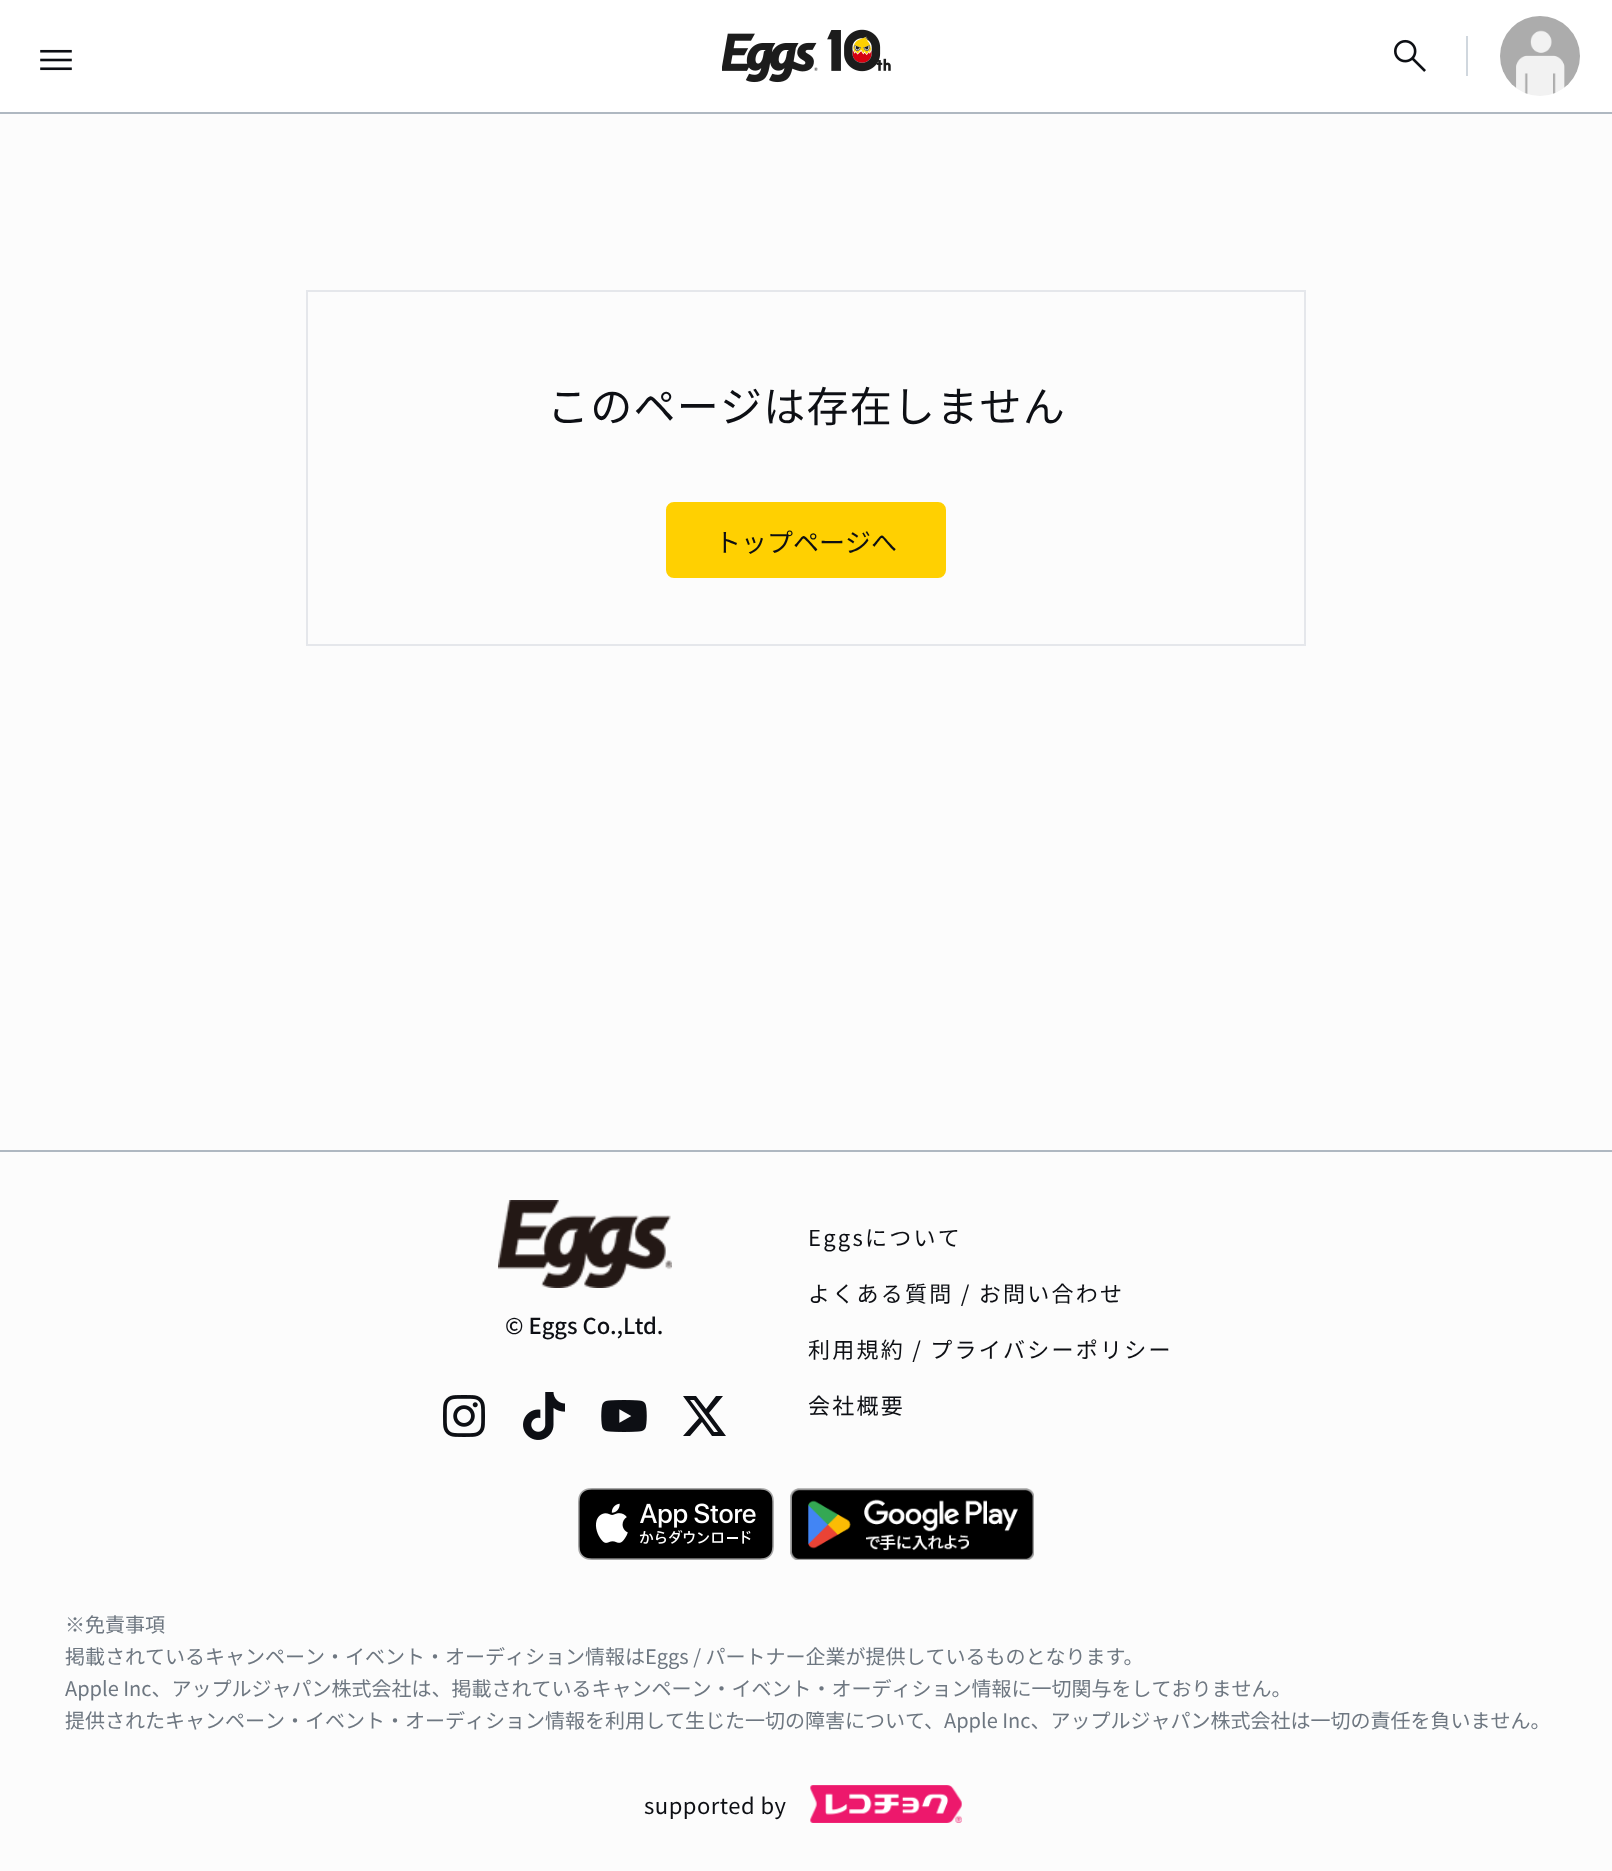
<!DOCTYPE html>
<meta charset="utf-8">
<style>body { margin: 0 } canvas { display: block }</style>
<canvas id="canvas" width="1612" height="1871"></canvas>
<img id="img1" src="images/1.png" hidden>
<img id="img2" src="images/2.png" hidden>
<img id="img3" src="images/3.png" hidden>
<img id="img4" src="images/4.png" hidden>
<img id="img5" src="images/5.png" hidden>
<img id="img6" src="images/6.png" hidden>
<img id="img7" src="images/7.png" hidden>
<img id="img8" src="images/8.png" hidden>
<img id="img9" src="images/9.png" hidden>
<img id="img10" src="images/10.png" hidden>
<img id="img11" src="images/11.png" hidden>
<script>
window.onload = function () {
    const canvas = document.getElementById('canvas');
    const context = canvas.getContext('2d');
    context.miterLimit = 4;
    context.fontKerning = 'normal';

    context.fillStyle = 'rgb(255, 255, 255)';
    context.fillRect(0, 0, 1612, 1871);
    context.fillStyle = 'rgb(175, 184, 193)';
    context.fillRect(0, 112, 1612, 2);
    context.drawImage(document.getElementById('img1'), 40, 49, 32, 22);
    context.drawImage(document.getElementById('img2'), 722, 29, 169, 54);
    context.drawImage(document.getElementById('img3'), 1394, 39, 32, 33);
    context.fillStyle = 'rgb(208, 215, 222)';
    context.fillRect(1466, 36, 2, 40);
    context.drawImage(document.getElementById('img4'), 1500, 16, 80, 80);
    context.fillStyle = 'rgb(252, 252, 252)';
    context.fillRect(0, 114, 1612, 1036);
    context.strokeStyle = 'rgb(229, 231, 235)';
    context.lineWidth = 2;
    context.strokeRect(307, 291, 998, 354);
    context.fillStyle = 'rgb(255, 208, 1)';
    context.beginPath();
    context.roundRect(667, 503, 278, 74, 7);
    context.fill();
    context.strokeStyle = 'rgb(255, 208, 1)';
    context.stroke();
    context.fillStyle = 'rgb(252, 252, 252)';
    context.fillRect(0, 1152, 1612, 719);
    context.fillStyle = 'rgb(175, 184, 193)';
    context.fillRect(0, 1150, 1612, 2);
    context.drawImage(document.getElementById('img5'), 498, 1200, 174, 88);
    context.drawImage(document.getElementById('img6'), 443, 1395, 42, 42);
    context.drawImage(document.getElementById('img7'), 523, 1392, 42, 48);
    context.drawImage(document.getElementById('img8'), 601, 1400, 46, 32);
    context.fillStyle = 'rgb(13, 15, 20)';
    context.beginPath();
    context.moveTo(716, 1396);
    context.lineTo(723, 1396);
    context.lineTo(709, 1413);
    context.lineTo(726, 1436);
    context.lineTo(712, 1436);
    context.lineTo(702, 1422);
    context.lineTo(690, 1436);
    context.lineTo(683, 1436);
    context.lineTo(699, 1418);
    context.lineTo(683, 1396);
    context.lineTo(696, 1396);
    context.lineTo(706, 1409);
    context.closePath();
    context.moveTo(714, 1432);
    context.lineTo(718, 1432);
    context.lineTo(694, 1400);
    context.lineTo(690, 1400);
    context.closePath();
    context.fill();
    context.drawImage(document.getElementById('img9'), 578, 1488, 196, 72);
    context.drawImage(document.getElementById('img10'), 790, 1488, 244, 72);
    context.drawImage(document.getElementById('img11'), 810, 1785, 152, 38);
    context.letterSpacing = '1.25px';
    context.font = '42px Noto Sans JP';
    context.fillText('このページは存在しません', 547, 422);
    context.letterSpacing = '0px';
    context.font = '26px Noto Sans JP';
    context.fillText('トップページへ', 715, 552);
    context.font = '500 22px Noto Sans JP';
    context.fillText('© Eggs Co.,Ltd.', 505, 1334);
    context.letterSpacing = '2.25px';
    context.font = '22px Noto Sans JP';
    context.fillText('Eggsについて', 808, 1246);
    context.fillText('よくある質問 / お問い合わせ', 808, 1302);
    context.fillText('利用規約 / プライバシーポリシー', 808, 1358);
    context.fillText('会社概要', 808, 1414);
    context.letterSpacing = '0px';
    context.font = '20px Noto Sans JP';
    context.fillStyle = 'rgb(110, 119, 129)';
    context.fillText('※免責事項', 65, 1632);
    context.fillText('掲載されているキャンペーン・イベント・オーディション情報はEggs / パートナー企業が提供しているものとなります。', 65, 1664);
    context.fillText('Apple Inc、アップルジャパン株式会社は、掲載されているキャンペーン・イベント・オーディション情報に一切関与をしておりません。', 65, 1696);
    context.fillText('提供されたキャンペーン・イベント・オーディション情報を利用して生じた一切の障害について、Apple Inc、アップルジャパン株式会社は一切の責任を負いません。', 65, 1728);
    context.letterSpacing = '0.5px';
    context.font = '22px Noto Sans JP';
    context.fillStyle = 'rgb(13, 15, 20)';
    context.fillText('supported by', 644, 1814);
};
</script>
